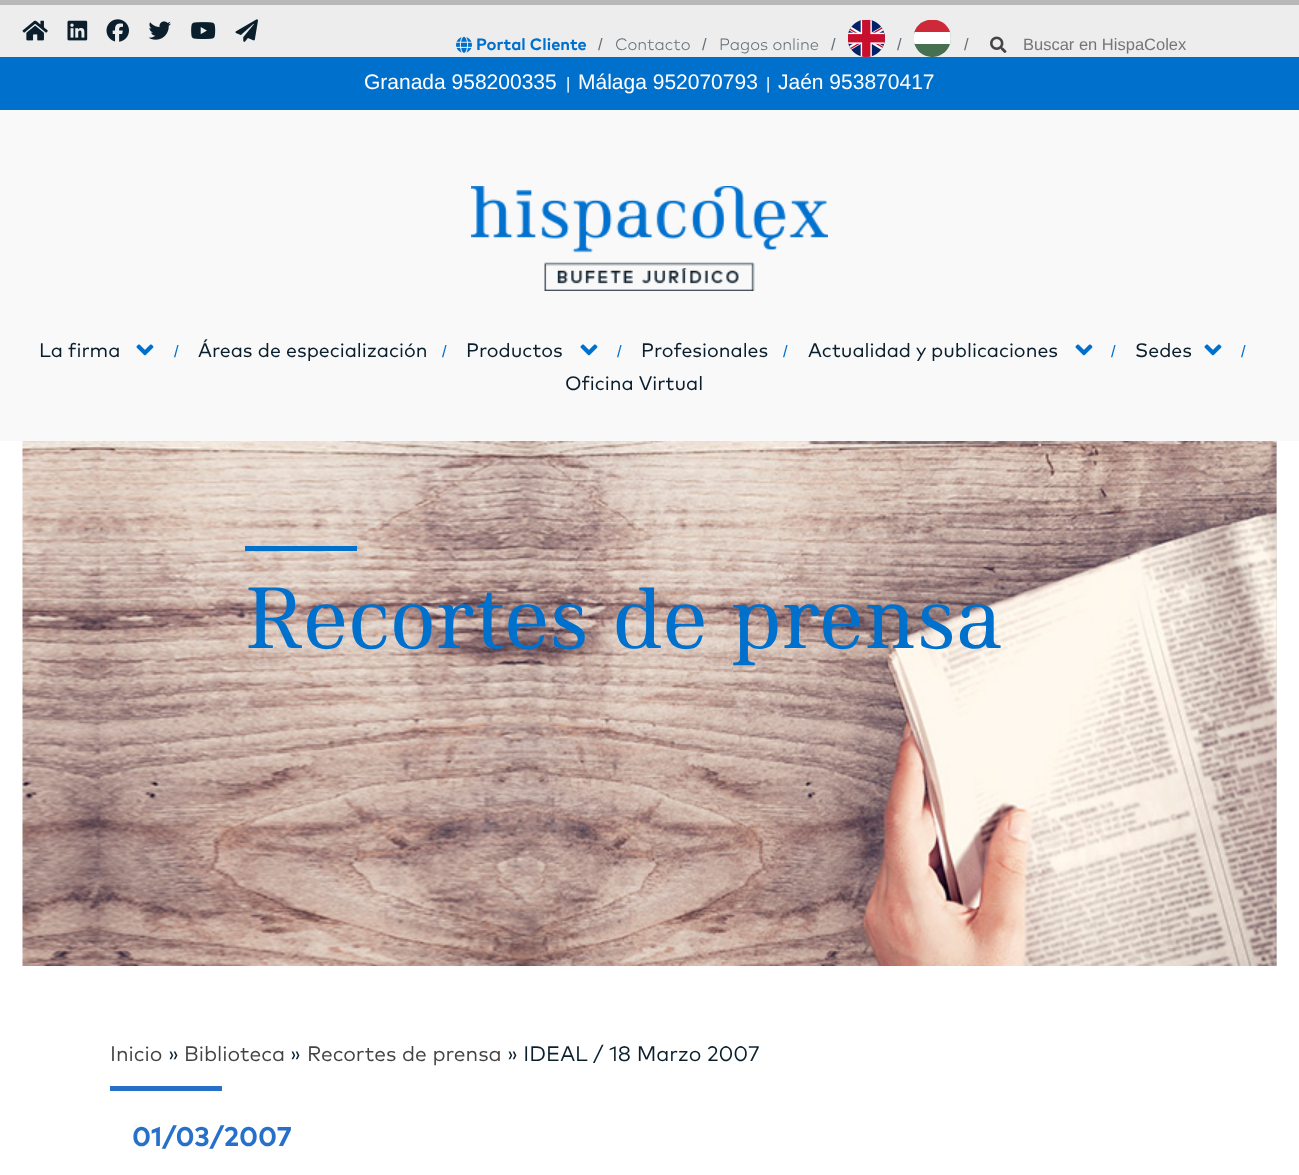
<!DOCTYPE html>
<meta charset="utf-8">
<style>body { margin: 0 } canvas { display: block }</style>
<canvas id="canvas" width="1299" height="1175"></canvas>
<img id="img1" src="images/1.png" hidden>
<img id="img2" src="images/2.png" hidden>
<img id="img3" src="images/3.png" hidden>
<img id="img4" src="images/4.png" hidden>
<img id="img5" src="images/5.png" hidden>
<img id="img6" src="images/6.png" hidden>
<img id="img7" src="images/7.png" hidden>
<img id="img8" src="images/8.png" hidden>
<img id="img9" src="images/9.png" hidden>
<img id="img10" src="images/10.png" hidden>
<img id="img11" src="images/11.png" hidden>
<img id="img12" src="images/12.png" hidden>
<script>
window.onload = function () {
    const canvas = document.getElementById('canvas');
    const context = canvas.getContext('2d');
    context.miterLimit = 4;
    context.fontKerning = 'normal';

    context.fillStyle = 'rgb(255, 255, 255)';
    context.fillRect(0, 0, 1299, 1175);
    context.fillStyle = 'rgb(184, 184, 184)';
    context.fillRect(0, 0, 1299, 5);
    context.fillStyle = 'rgb(249, 249, 249)';
    context.fillRect(0, 110, 1299, 331);
    context.fillStyle = 'rgb(237, 237, 237)';
    context.fillRect(0, 5, 1299, 52);
    context.drawImage(document.getElementById('img1'), 22, 20, 26, 21);
    context.drawImage(document.getElementById('img2'), 67, 20, 21, 21);
    context.drawImage(document.getElementById('img3'), 106, 19, 23, 23);
    context.drawImage(document.getElementById('img4'), 148, 21, 23, 19);
    context.drawImage(document.getElementById('img5'), 191, 22, 25, 17);
    context.drawImage(document.getElementById('img6'), 235, 19, 23, 23);
    context.drawImage(document.getElementById('img7'), 456, 36, 16, 17);
    context.drawImage(document.getElementById('img8'), 848, 20, 37, 37);
    context.save();
    context.beginPath();
    context.rect(914, 20, 37, 37);
    context.clip();
    context.fillStyle = 'rgb(71, 112, 80)';
    context.beginPath();
    context.moveTo(936.5, 20);
    context.bezierCurveTo(954, 24, 956, 48.5, 939.5, 55.5);
    context.bezierCurveTo(936, 57, 932, 57.5, 928.5, 56.5);
    context.bezierCurveTo(909, 52.5, 908.5, 24.5, 928, 20);
    context.closePath();
    context.fill();
    context.fillStyle = 'rgb(255, 255, 255)';
    context.beginPath();
    context.moveTo(914.5, 44);
    context.bezierCurveTo(911, 34, 917.5, 22.5, 928, 20);
    context.lineTo(936.5, 20);
    context.bezierCurveTo(941.5, 21, 946, 24.5, 948.5, 29);
    context.bezierCurveTo(951, 33.5, 951.5, 39, 950, 44);
    context.closePath();
    context.fill();
    context.restore();
    context.fillStyle = 'rgb(206, 41, 57)';
    context.beginPath();
    context.moveTo(914.5, 32);
    context.bezierCurveTo(916.5, 26, 921.5, 21.5, 928, 20);
    context.lineTo(936.5, 20);
    context.bezierCurveTo(943, 21.5, 948, 26, 950, 32);
    context.closePath();
    context.fill();
    context.drawImage(document.getElementById('img9'), 990, 36, 17, 17);
    context.fillStyle = 'rgb(0, 112, 205)';
    context.fillRect(0, 57, 1299, 53);
    context.drawImage(document.getElementById('img10'), 471, 186, 357, 105);
    context.drawImage(document.getElementById('img11'), 136, 344, 18, 12);
    context.drawImage(document.getElementById('img11'), 580, 344, 18, 12);
    context.drawImage(document.getElementById('img11'), 1075, 344, 18, 12);
    context.drawImage(document.getElementById('img11'), 1204, 344, 18, 12);
    context.fillStyle = 'rgb(221, 221, 221)';
    context.fillRect(1276, 441, 1, 525);
    context.drawImage(document.getElementById('img12'), 22, 441, 1255, 525);
    context.fillStyle = 'rgb(0, 112, 205)';
    context.fillRect(245, 546, 112, 5);
    context.fillStyle = 'rgb(39, 112, 202)';
    context.fillRect(110, 1086, 112, 5);
    context.font = 'bold 16.5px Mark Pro';
    context.fillStyle = 'rgb(0, 112, 205)';
    context.fillText('Portal Cliente', 476, 50);
    context.font = '16.5px Liberation Sans';
    context.fillStyle = 'rgb(99, 111, 121)';
    context.fillText('/', 598, 50);
    context.font = '300 16.5px Mark Pro';
    context.fillText('Contacto', 615, 50);
    context.font = '16.5px Liberation Sans';
    context.fillText('/', 702, 50);
    context.font = '300 16.5px Mark Pro';
    context.fillText('Pagos online', 719, 50);
    context.font = '16.5px Liberation Sans';
    context.fillText('/', 831, 50);
    context.fillText('/', 897, 50);
    context.fillText('/', 964, 50);
    context.fillStyle = 'rgb(117, 117, 117)';
    context.fillText('Buscar en HispaColex', 1023, 50);
    context.font = '21px Liberation Sans';
    context.fillStyle = 'rgb(255, 255, 255)';
    context.fillText('Granada 958200335', 364, 89);
    context.font = '16.5px Liberation Sans';
    context.fillText('|', 566, 89);
    context.font = '21px Liberation Sans';
    context.fillText('Málaga 952070793', 578, 89);
    context.font = '16.5px Liberation Sans';
    context.fillText('|', 766, 89);
    context.font = '21px Liberation Sans';
    context.fillText('Jaén 953870417', 778, 89);
    context.font = '19.5px "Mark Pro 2"';
    context.fillStyle = 'rgb(10, 30, 44)';
    context.fillText('La firma', 39, 357);
    context.font = '16.5px Liberation Sans';
    context.fillStyle = 'rgb(0, 112, 205)';
    context.fillText('/', 174, 357);
    context.font = '19.5px "Mark Pro 2"';
    context.fillStyle = 'rgb(10, 30, 44)';
    context.fillText('Áreas de especialización', 198, 357);
    context.font = '16.5px Liberation Sans';
    context.fillStyle = 'rgb(0, 112, 205)';
    context.fillText('/', 442, 357);
    context.font = '19.5px "Mark Pro 2"';
    context.fillStyle = 'rgb(10, 30, 44)';
    context.fillText('Productos', 466, 357);
    context.font = '16.5px Liberation Sans';
    context.fillStyle = 'rgb(0, 112, 205)';
    context.fillText('/', 617, 357);
    context.font = '19.5px "Mark Pro 2"';
    context.fillStyle = 'rgb(10, 30, 44)';
    context.fillText('Profesionales', 641, 357);
    context.font = '16.5px Liberation Sans';
    context.fillStyle = 'rgb(0, 112, 205)';
    context.fillText('/', 783, 357);
    context.font = '19.5px "Mark Pro 2"';
    context.fillStyle = 'rgb(10, 30, 44)';
    context.fillText('Actualidad y publicaciones', 808, 357);
    context.font = '16.5px Liberation Sans';
    context.fillStyle = 'rgb(0, 112, 205)';
    context.fillText('/', 1111, 357);
    context.font = '19.5px "Mark Pro 2"';
    context.fillStyle = 'rgb(10, 30, 44)';
    context.fillText('Sedes', 1135, 357);
    context.font = '16.5px Liberation Sans';
    context.fillStyle = 'rgb(0, 112, 205)';
    context.fillText('/', 1241, 357);
    context.font = '19.5px "Mark Pro 2"';
    context.fillStyle = 'rgb(10, 30, 44)';
    context.fillText('Oficina Virtual', 565, 390);
    context.font = '90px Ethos';
    context.fillStyle = 'rgb(0, 112, 205)';
    context.fillText('Recortes de prensa', 245, 648);
    context.font = '21px Mark Pro';
    context.fillStyle = 'rgb(68, 68, 68)';
    context.fillText('Inicio', 110, 1061);
    context.fillStyle = 'rgb(10, 30, 44)';
    context.fillText('»', 168, 1061);
    context.fillStyle = 'rgb(68, 68, 68)';
    context.fillText('Biblioteca', 184, 1061);
    context.fillStyle = 'rgb(10, 30, 44)';
    context.fillText('»', 290, 1061);
    context.fillStyle = 'rgb(68, 68, 68)';
    context.fillText('Recortes de prensa', 307, 1061);
    context.fillStyle = 'rgb(10, 30, 44)';
    context.fillText('» IDEAL / 18 Marzo 2007', 507, 1061);
    context.font = 'bold 27px Mark Pro';
    context.fillStyle = 'rgb(39, 112, 202)';
    context.fillText('01/03/2007', 132, 1146);
};
</script>
